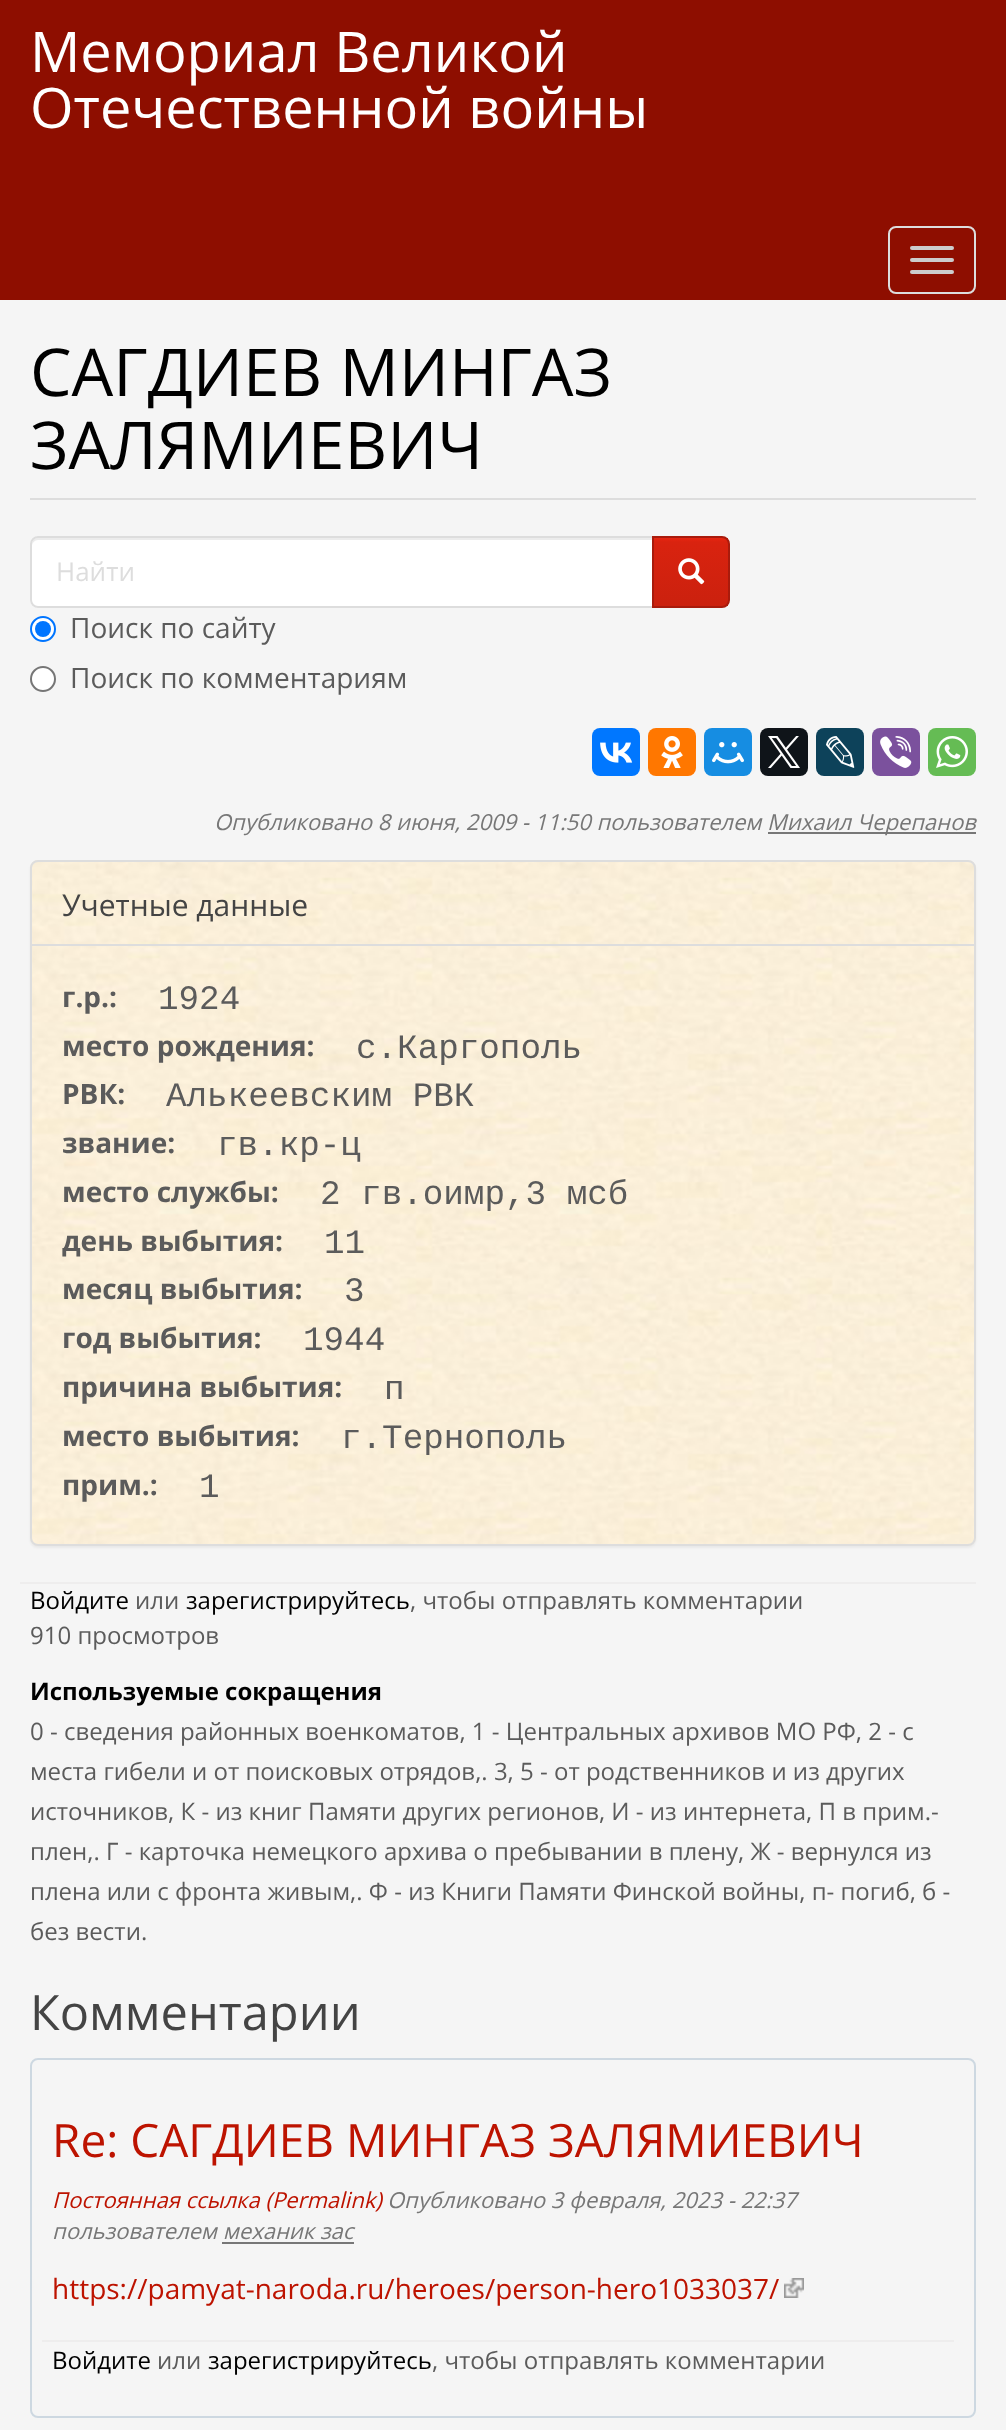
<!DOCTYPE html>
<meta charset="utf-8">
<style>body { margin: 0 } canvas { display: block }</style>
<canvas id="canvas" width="1006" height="2430"></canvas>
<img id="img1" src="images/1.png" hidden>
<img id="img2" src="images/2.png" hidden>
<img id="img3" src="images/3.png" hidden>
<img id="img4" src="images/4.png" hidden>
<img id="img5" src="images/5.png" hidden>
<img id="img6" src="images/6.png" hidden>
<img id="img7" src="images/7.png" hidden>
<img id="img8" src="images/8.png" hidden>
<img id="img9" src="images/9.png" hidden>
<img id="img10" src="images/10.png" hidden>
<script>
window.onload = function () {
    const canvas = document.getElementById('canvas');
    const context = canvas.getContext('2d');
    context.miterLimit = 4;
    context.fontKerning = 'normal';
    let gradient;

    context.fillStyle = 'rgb(245, 245, 245)';
    context.fillRect(0, 0, 1006, 2430);
    context.fillStyle = 'rgb(142, 14, 0)';
    context.fillRect(0, 0, 1006, 300);
    context.beginPath();
    context.roundRect(889, 227, 86, 66, 7);
    context.strokeStyle = 'rgb(221, 221, 221)';
    context.lineWidth = 2;
    context.stroke();
    context.fillStyle = 'rgb(204, 204, 204)';
    context.beginPath();
    context.roundRect(910, 246, 44, 4, 2);
    context.fill();
    context.beginPath();
    context.roundRect(910, 258, 44, 4, 2);
    context.fill();
    context.beginPath();
    context.roundRect(910, 270, 44, 4, 2);
    context.fill();
    context.fillStyle = 'rgb(221, 221, 221)';
    context.fillRect(30, 498, 946, 2);
    context.fillStyle = 'rgb(255, 255, 255)';
    context.beginPath();
    context.roundRect(30, 536, 624, 72, [8, 0, 0, 8]);
    context.fill();
    context.fillStyle = 'rgb(236, 236, 236)';
    context.beginPath();
    context.moveTo(38, 540);
    context.lineTo(652, 540);
    context.lineTo(652, 538);
    context.lineTo(38, 538);
    context.bezierCurveTo(33, 538, 32, 542, 32, 546);
    context.bezierCurveTo(32, 543, 35, 540, 38, 540);
    context.closePath();
    context.fill();
    context.beginPath();
    context.roundRect(31, 537, 622, 70, [7, 0, 0, 7]);
    context.stroke();
    gradient = context.createLinearGradient(691, 538, 691, 606);
    gradient.addColorStop(0, 'rgb(231, 37, 16)');
    gradient.addColorStop(0.06, 'rgb(217, 35, 15)');
    gradient.addColorStop(1, 'rgb(203, 33, 14)');
    context.fillStyle = gradient;
    context.fillRect(654, 538, 74, 68);
    context.beginPath();
    context.roundRect(653, 537, 76, 70, [0, 7, 7, 0]);
    context.strokeStyle = 'rgb(169, 27, 12)';
    context.stroke();
    context.drawImage(document.getElementById('img1'), 678, 558, 27, 27);
    context.fillStyle = 'rgb(255, 255, 255)';
    context.beginPath();
    context.arc(43, 629, 12, 0, 2 * Math.PI);
    context.fill();
    context.strokeStyle = 'rgb(0, 117, 255)';
    context.stroke();
    context.fillStyle = 'rgb(0, 117, 255)';
    context.beginPath();
    context.arc(43, 629, 8, 0, 2 * Math.PI);
    context.fill();
    context.fillStyle = 'rgb(255, 255, 255)';
    context.beginPath();
    context.arc(43, 679, 12, 0, 2 * Math.PI);
    context.fill();
    context.strokeStyle = 'rgb(118, 118, 118)';
    context.stroke();
    context.fillStyle = 'rgb(0, 119, 255)';
    context.beginPath();
    context.roundRect(592, 728, 48, 48, 8);
    context.fill();
    context.drawImage(document.getElementById('img2'), 600, 742, 33, 21);
    context.fillStyle = 'rgb(255, 119, 0)';
    context.beginPath();
    context.roundRect(648, 728, 48, 48, 8);
    context.fill();
    context.drawImage(document.getElementById('img3'), 661, 736, 22, 32);
    context.fillStyle = 'rgb(22, 141, 226)';
    context.beginPath();
    context.roundRect(704, 728, 48, 48, 8);
    context.fill();
    context.drawImage(document.getElementById('img4'), 712, 742, 32, 22);
    context.fillStyle = 'rgb(15, 20, 25)';
    context.beginPath();
    context.roundRect(760, 728, 48, 48, 8);
    context.fill();
    context.drawImage(document.getElementById('img5'), 768, 736, 32, 32);
    context.fillStyle = 'rgb(13, 66, 90)';
    context.beginPath();
    context.roundRect(816, 728, 48, 48, 8);
    context.fill();
    context.drawImage(document.getElementById('img6'), 826, 736, 29, 32);
    context.fillStyle = 'rgb(123, 81, 157)';
    context.beginPath();
    context.roundRect(872, 728, 48, 48, 8);
    context.fill();
    context.drawImage(document.getElementById('img7'), 880, 736, 32, 32);
    context.fillStyle = 'rgb(101, 188, 84)';
    context.beginPath();
    context.roundRect(928, 728, 48, 48, 8);
    context.fill();
    context.drawImage(document.getElementById('img8'), 936, 736, 32, 32);
    context.fillStyle = 'rgb(119, 119, 119)';
    context.fillRect(768, 832, 208, 2);
    context.fillStyle = 'rgba(0, 0, 0, 0.05)';
    context.filter = 'blur(1px)';
    context.beginPath();
    context.roundRect(30, 862, 946, 686, 8);
    context.fill();
    context.filter = 'none';
    context.drawImage(document.getElementById('img9'), 30, 860, 946, 686);
    context.beginPath();
    context.roundRect(31, 861, 944, 684, 7);
    context.strokeStyle = 'rgb(221, 221, 221)';
    context.stroke();
    context.fillStyle = 'rgb(221, 221, 221)';
    context.fillRect(32, 944, 942, 2);
    context.fillStyle = 'rgb(238, 237, 237)';
    context.fillRect(20, 1582, 956, 2);
    context.beginPath();
    context.roundRect(31, 2059, 944, 358, 7);
    context.strokeStyle = 'rgb(205, 216, 225)';
    context.stroke();
    context.fillStyle = 'rgb(119, 119, 119)';
    context.fillRect(222, 2242, 132, 2);
    context.drawImage(document.getElementById('img10'), 784, 2278, 20, 20);
    context.fillStyle = 'rgb(238, 237, 237)';
    context.fillRect(42, 2340, 912, 2);
    context.font = '56px Open Sans';
    context.fillStyle = 'rgb(255, 255, 255)';
    context.fillText('Мемориал Великой', 30, 72);
    context.fillText('Отечественной войны', 30, 128);
    context.font = '66px Open Sans';
    context.fillStyle = 'rgb(0, 0, 0)';
    context.fillText('САГДИЕВ МИНГАЗ', 30, 396);
    context.fillText('ЗАЛЯМИЕВИЧ', 30, 469);
    context.font = '26px Open Sans';
    context.fillStyle = 'rgb(221, 221, 221)';
    context.fillText('Найти', 56, 581);
    context.font = '28px Open Sans';
    context.fillStyle = 'rgb(91, 91, 91)';
    context.fillText('Поиск по сайту', 70, 638);
    context.fillText('Поиск по комментариям', 70, 688);
    context.font = 'italic 22px Open Sans';
    context.fillStyle = 'rgb(119, 119, 119)';
    context.fillText('Опубликовано 8 июня, 2009 - 11:50 пользователем', 214, 830);
    context.fillText('Михаил Черепанов', 767, 830);
    context.font = '30px Open Sans';
    context.fillStyle = 'rgb(68, 68, 68)';
    context.fillText('Учетные данные', 62, 916);
    context.font = 'bold 28px Open Sans';
    context.fillStyle = 'rgb(91, 91, 91)';
    context.fillText('г.р.:', 62, 1007);
    context.font = '34.25px Liberation Mono';
    context.fillText('1924', 158, 1009);
    context.font = 'bold 28px Open Sans';
    context.fillText('место рождения:', 62, 1056);
    context.font = '34.25px Liberation Mono';
    context.fillText('с.Каргополь', 356, 1058);
    context.font = 'bold 28px Open Sans';
    context.fillText('РВК:', 62, 1104);
    context.font = '34.25px Liberation Mono';
    context.fillText('Алькеевским РВК', 166, 1106);
    context.font = 'bold 28px Open Sans';
    context.fillText('звание:', 62, 1153);
    context.font = '34.25px Liberation Mono';
    context.fillText('гв.кр-ц', 217, 1155);
    context.font = 'bold 28px Open Sans';
    context.fillText('место службы:', 62, 1202);
    context.font = '34.25px Liberation Mono';
    context.fillText('2 гв.оимр,3 мсб', 320, 1204);
    context.font = 'bold 28px Open Sans';
    context.fillText('день выбытия:', 62, 1251);
    context.font = '34.25px Liberation Mono';
    context.fillText('11', 324, 1253);
    context.font = 'bold 28px Open Sans';
    context.fillText('месяц выбытия:', 62, 1299);
    context.font = '34.25px Liberation Mono';
    context.fillText('3', 344, 1301);
    context.font = 'bold 28px Open Sans';
    context.fillText('год выбытия:', 62, 1348);
    context.font = '34.25px Liberation Mono';
    context.fillText('1944', 303, 1350);
    context.font = 'bold 28px Open Sans';
    context.fillText('причина выбытия:', 62, 1397);
    context.font = '34.25px Liberation Mono';
    context.fillText('п', 384, 1399);
    context.font = 'bold 28px Open Sans';
    context.fillText('место выбытия:', 62, 1446);
    context.font = '34.25px Liberation Mono';
    context.fillText('г.Тернополь', 341, 1448);
    context.font = 'bold 28px Open Sans';
    context.fillText('прим.:', 62, 1495);
    context.font = '34.25px Liberation Mono';
    context.fillText('1', 199, 1497);
    context.font = '24px Open Sans';
    context.fillStyle = 'rgb(0, 0, 0)';
    context.fillText('Войдите', 30, 1609);
    context.fillStyle = 'rgb(91, 91, 91)';
    context.fillText('или', 135, 1609);
    context.fillStyle = 'rgb(0, 0, 0)';
    context.fillText('зарегистрируйтесь', 186, 1609);
    context.fillStyle = 'rgb(91, 91, 91)';
    context.fillText(', чтобы отправлять комментарии', 410, 1609);
    context.fillText('910 просмотров', 30, 1644);
    context.font = 'bold 24px Open Sans';
    context.fillStyle = 'rgb(0, 0, 0)';
    context.fillText('Используемые сокращения', 30, 1700);
    context.font = '24px Open Sans';
    context.fillStyle = 'rgb(91, 91, 91)';
    context.fillText('0 - сведения районных военкоматов, 1 - Центральных архивов МО РФ, 2 - с', 30, 1740);
    context.fillText('места гибели и от поисковых отрядов,. 3, 5 - от родственников и из других', 30, 1780);
    context.fillText('источников, К - из книг Памяти других регионов, И - из интернета, П в прим.-', 30, 1820);
    context.fillText('плен,. Г - карточка немецкого архива о пребывании в плену, Ж - вернулся из', 30, 1860);
    context.fillText('плена или с фронта живым,. Ф - из Книги Памяти Финской войны, п- погиб, б -', 30, 1900);
    context.fillText('без вести.', 30, 1940);
    context.font = '48.75px Open Sans';
    context.fillStyle = 'rgb(68, 68, 68)';
    context.fillText('Комментарии', 30, 2030);
    context.font = '46px Open Sans';
    context.fillStyle = 'rgb(189, 19, 0)';
    context.fillText('Re: САГДИЕВ МИНГАЗ ЗАЛЯМИЕВИЧ', 52, 2157);
    context.font = 'italic 22px Open Sans';
    context.fillText('Постоянная ссылка (Permalink)', 52, 2208);
    context.fillStyle = 'rgb(119, 119, 119)';
    context.fillText('Опубликовано 3 февраля, 2023 - 22:37', 387, 2208);
    context.fillText('пользователем механик зас', 52, 2239);
    context.font = '28px Open Sans';
    context.fillStyle = 'rgb(189, 19, 0)';
    context.fillText('https://pamyat-naroda.ru/heroes/person-hero1033037/', 52, 2299);
    context.font = '24px Open Sans';
    context.fillStyle = 'rgb(0, 0, 0)';
    context.fillText('Войдите', 52, 2369);
    context.fillStyle = 'rgb(91, 91, 91)';
    context.fillText('или', 157, 2369);
    context.fillStyle = 'rgb(0, 0, 0)';
    context.fillText('зарегистрируйтесь', 208, 2369);
    context.fillStyle = 'rgb(91, 91, 91)';
    context.fillText(', чтобы отправлять комментарии', 432, 2369);
};
</script>
